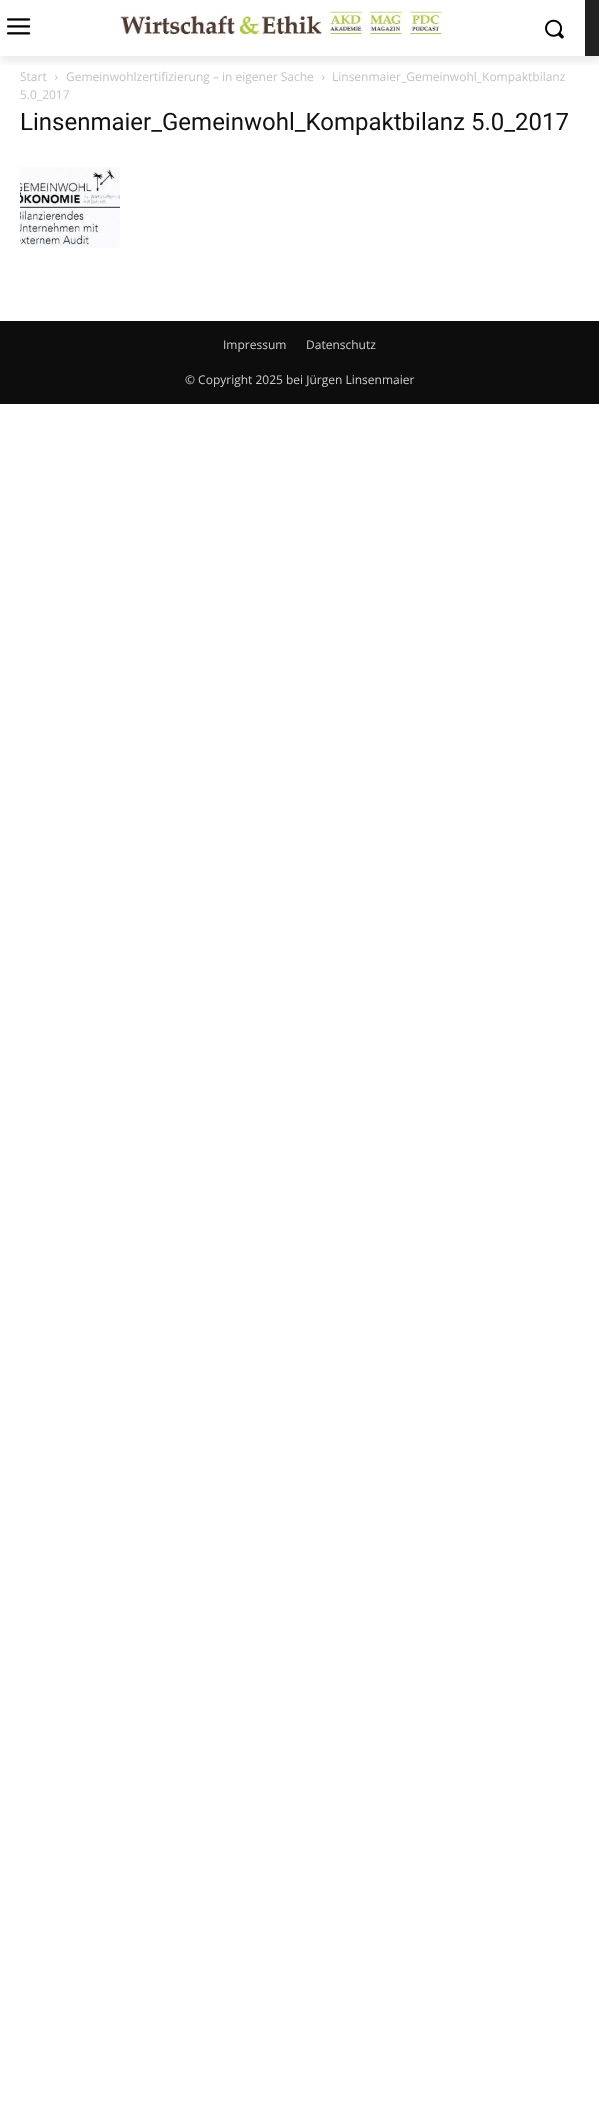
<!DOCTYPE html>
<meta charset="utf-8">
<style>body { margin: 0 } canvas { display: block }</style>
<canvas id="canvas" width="599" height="2102"></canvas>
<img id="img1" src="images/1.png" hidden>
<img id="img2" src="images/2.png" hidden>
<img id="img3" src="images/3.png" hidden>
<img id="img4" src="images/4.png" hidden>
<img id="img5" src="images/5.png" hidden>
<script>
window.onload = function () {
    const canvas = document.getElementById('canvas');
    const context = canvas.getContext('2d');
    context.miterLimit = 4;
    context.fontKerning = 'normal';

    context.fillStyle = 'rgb(255, 255, 255)';
    context.fillRect(0, 0, 599, 2102);
    context.drawImage(document.getElementById('img1'), 7, 18, 24, 17);
    context.drawImage(document.getElementById('img2'), 120, 6, 323, 33);
    context.drawImage(document.getElementById('img3'), 545, 19, 19, 20);
    context.fillStyle = 'rgb(34, 34, 34)';
    context.fillRect(585, 0, 14, 56);
    context.save();
    context.beginPath();
    context.rect(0, 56, 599, 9);
    context.clip();
    context.fillStyle = 'rgba(0, 0, 0, 0.08)';
    context.filter = 'blur(4px)';
    context.beginPath();
    context.rect(1, 6, 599, 56);
    context.fill();
    context.filter = 'none';
    context.restore();
    context.drawImage(document.getElementById('img4'), 55, 75, 3, 5);
    context.drawImage(document.getElementById('img4'), 322, 75, 3, 5);
    context.drawImage(document.getElementById('img5'), 20, 167, 100, 81);
    context.fillStyle = 'rgb(13, 13, 13)';
    context.fillRect(0, 321, 599, 83);
    context.font = '12px Open Sans';
    context.fillStyle = 'rgb(195, 195, 195)';
    context.fillText('Start', 20, 81);
    context.fillText('Gemeinwohlzertifizierung – in eigener Sache', 66, 81);
    context.fillText('Linsenmaier_Gemeinwohl_Kompaktbilanz', 332, 81);
    context.fillText('5.0_2017', 20, 99);
    context.font = '24px Roboto';
    context.fillStyle = 'rgb(17, 17, 17)';
    context.fillText('Linsenmaier_Gemeinwohl_Kompaktbilanz 5.0_2017', 20, 130);
    context.font = '12px Open Sans';
    context.fillStyle = 'rgb(204, 204, 204)';
    context.fillText('Impressum', 223, 349);
    context.fillText('Datenschutz', 306, 349);
    context.fillText('© Copyright 2025 bei Jürgen Linsenmaier', 185, 384);
};
</script>
